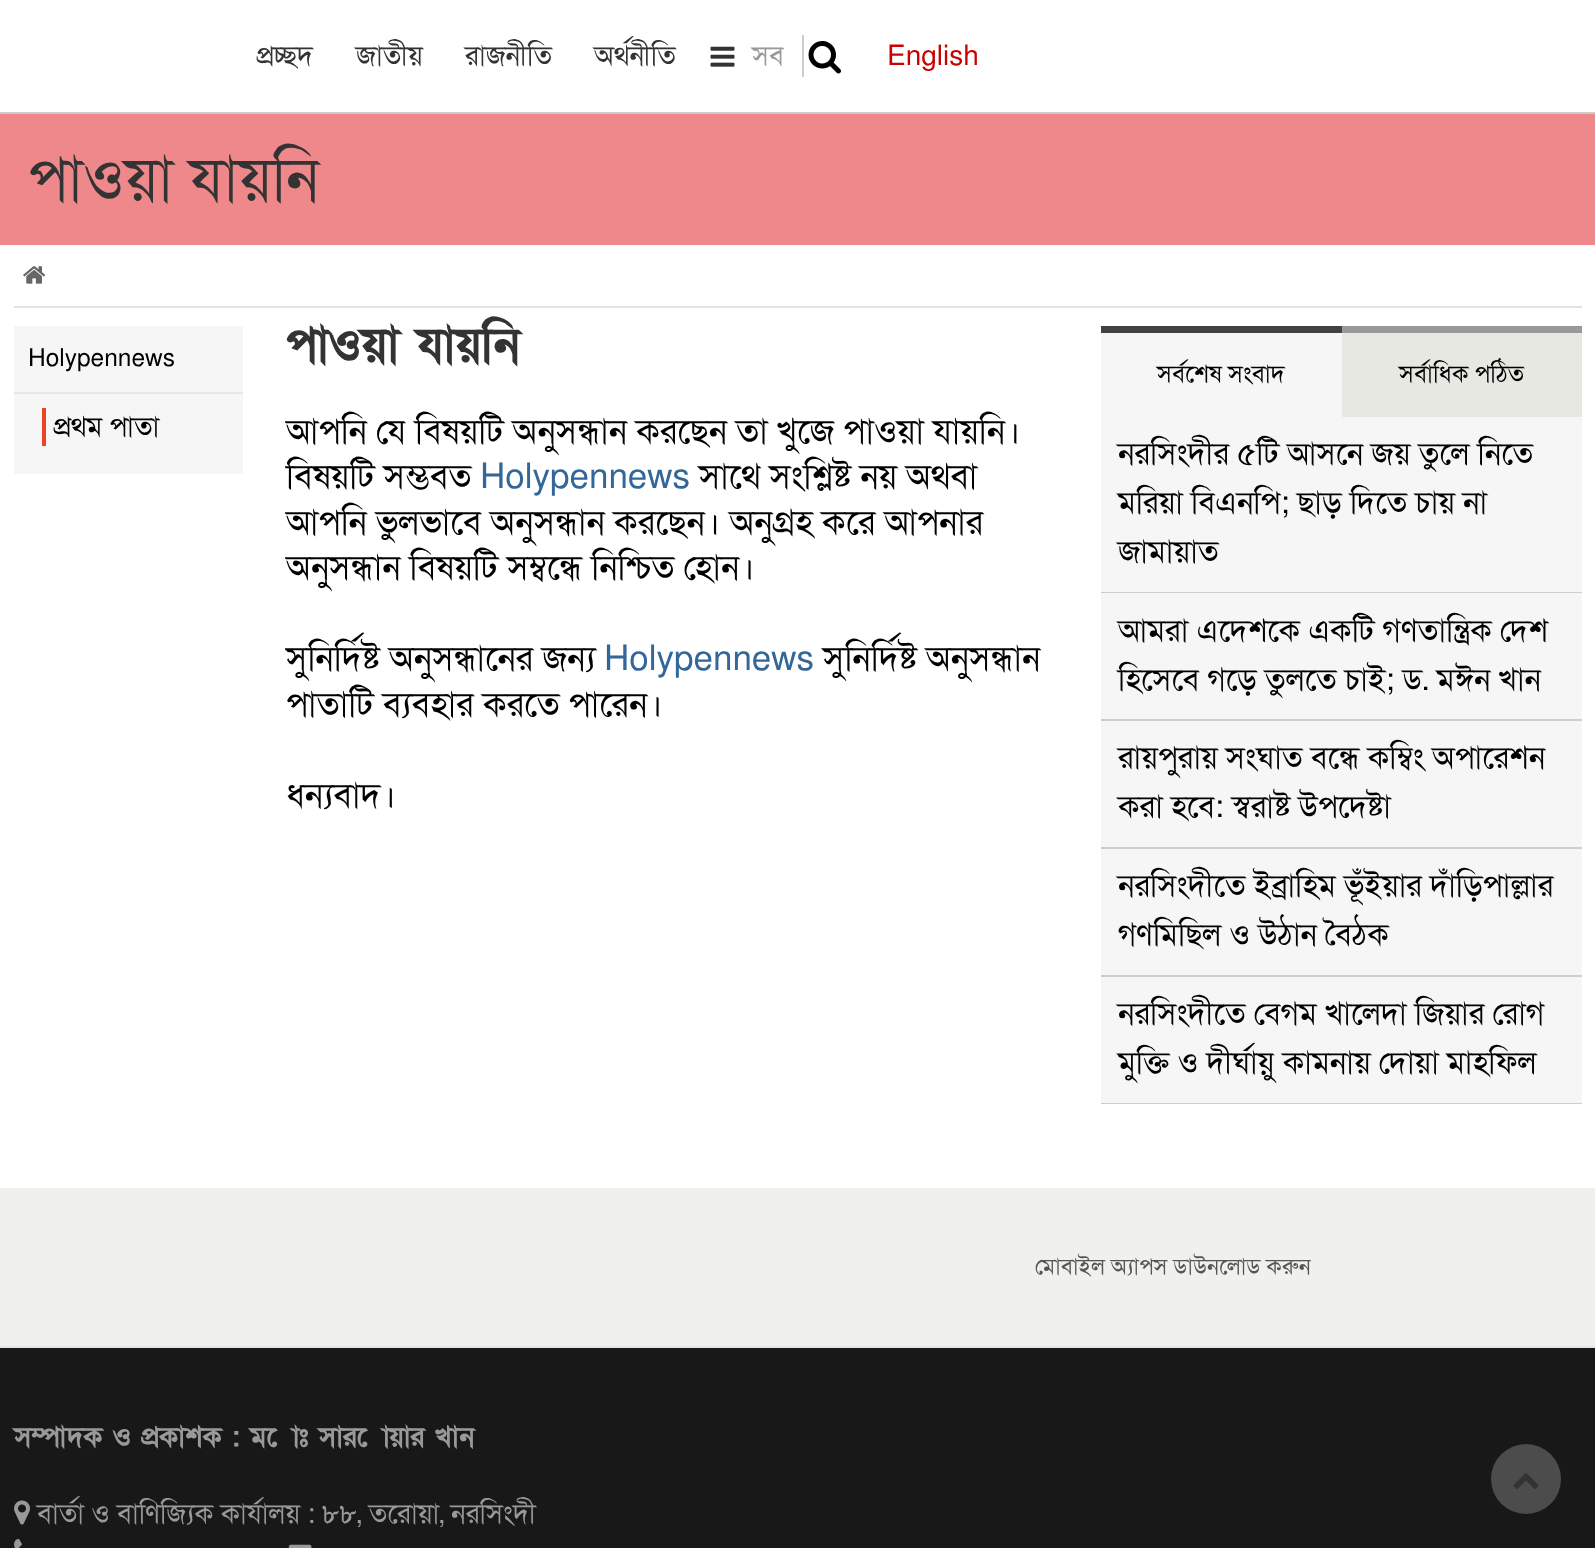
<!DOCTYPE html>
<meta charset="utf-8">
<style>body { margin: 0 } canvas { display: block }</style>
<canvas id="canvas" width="1595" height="1548"></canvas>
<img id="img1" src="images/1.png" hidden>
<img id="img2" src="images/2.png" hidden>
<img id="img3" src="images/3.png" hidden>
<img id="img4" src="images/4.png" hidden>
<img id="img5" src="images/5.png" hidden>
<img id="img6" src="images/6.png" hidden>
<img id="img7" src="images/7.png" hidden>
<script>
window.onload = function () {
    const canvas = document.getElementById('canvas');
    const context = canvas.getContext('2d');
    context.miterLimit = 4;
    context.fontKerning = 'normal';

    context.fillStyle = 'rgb(240, 240, 237)';
    context.fillRect(0, 0, 1595, 1548);
    context.fillStyle = 'rgb(255, 255, 255)';
    context.fillRect(0, 245, 1595, 943);
    context.fillRect(0, 0, 1595, 112);
    context.fillStyle = 'rgb(204, 204, 204)';
    context.fillRect(0, 112, 1595, 2);
    context.fillRect(802, 35, 2, 42);
    context.drawImage(document.getElementById('img1'), 710, 46, 25, 21);
    context.drawImage(document.getElementById('img2'), 808, 41, 33, 33);
    context.fillStyle = 'rgb(239, 136, 139)';
    context.fillRect(0, 114, 1595, 131);
    context.fillStyle = 'rgb(226, 226, 226)';
    context.fillRect(14, 306, 1568, 2);
    context.drawImage(document.getElementById('img3'), 23, 266, 23, 18);
    context.fillStyle = 'rgb(246, 246, 246)';
    context.fillRect(14, 326, 229, 148);
    context.fillStyle = 'rgb(231, 231, 231)';
    context.fillRect(14, 392, 229, 2);
    context.fillStyle = 'rgb(239, 65, 35)';
    context.fillRect(42, 408, 4, 38);
    context.fillStyle = 'rgb(246, 246, 246)';
    context.fillRect(1101, 333, 241, 84);
    context.fillStyle = 'rgb(66, 66, 66)';
    context.fillRect(1101, 326, 241, 7);
    context.fillStyle = 'rgb(231, 232, 225)';
    context.fillRect(1342, 333, 240, 84);
    context.fillStyle = 'rgb(153, 153, 153)';
    context.fillRect(1342, 326, 240, 7);
    context.fillStyle = 'rgb(246, 246, 246)';
    context.fillRect(1101, 417, 481, 686);
    context.fillStyle = 'rgb(204, 204, 204)';
    context.fillRect(1101, 592, 481, 1);
    context.fillRect(1101, 719, 481, 2);
    context.fillRect(1101, 847, 481, 2);
    context.fillRect(1101, 975, 481, 2);
    context.fillRect(1101, 1103, 481, 1);
    context.fillStyle = 'rgb(227, 227, 225)';
    context.fillRect(0, 1346, 1595, 2);
    context.fillStyle = 'rgb(24, 24, 24)';
    context.fillRect(0, 1348, 1595, 200);
    context.drawImage(document.getElementById('img4'), 14, 1500, 16, 25);
    context.drawImage(document.getElementById('img5'), 14, 1539, 8, 9);
    context.drawImage(document.getElementById('img6'), 288, 1544, 24, 4);
    context.fillStyle = 'rgb(76, 76, 76)';
    context.beginPath();
    context.arc(1526, 1479, 35, 0, 2 * Math.PI);
    context.fill();
    context.drawImage(document.getElementById('img7'), 1513, 1473, 26, 16);
    context.font = '28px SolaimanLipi';
    context.fillStyle = 'rgb(51, 51, 51)';
    context.fillText('প্রচ্ছদ', 256, 65);
    context.fillText('জাতীয়', 356, 65);
    context.fillText('রাজনীতি', 465, 65);
    context.fillText('অর্থনীতি', 594, 65);
    context.fillStyle = 'rgb(153, 153, 153)';
    context.fillText('সব', 752, 65);
    context.fillStyle = 'rgb(204, 0, 0)';
    context.fillText('English', 887, 65);
    context.font = '63px SolaimanLipi';
    context.fillStyle = 'rgb(51, 51, 51)';
    context.fillText('পাওয়া যায়নি', 28, 200);
    context.font = '24.5px SolaimanLipi';
    context.fillStyle = 'rgb(0, 0, 0)';
    context.fillText('Holypennews', 28, 366);
    context.font = '28px SolaimanLipi';
    context.fillText('প্রথম পাতা', 53, 436);
    context.font = 'bold 49px SolaimanLipi';
    context.fillStyle = 'rgb(51, 51, 51)';
    context.fillText('পাওয়া যায়নি', 286, 361);
    context.save();
    context.beginPath();
    context.rect(285, 410, 774, 409);
    context.clip();
    context.font = '35px SolaimanLipi';
    context.fillStyle = 'rgb(0, 0, 0)';
    context.fillText('আপনি যে বিষয়টি অনুসন্ধান করছেন তা খুজে পাওয়া যায়নি।', 286, 443);
    context.fillText('বিষয়টি সম্ভবত', 286, 488);
    context.restore();
    context.font = '35px SolaimanLipi';
    context.fillStyle = 'rgb(51, 102, 153)';
    context.fillText('Holypennews', 480, 488);
    context.fillStyle = 'rgb(0, 0, 0)';
    context.fillText('সাথে সংশ্লিষ্ট নয় অথবা', 699, 488);
    context.save();
    context.beginPath();
    context.rect(285, 410, 774, 409);
    context.clip();
    context.fillText('আপনি ভুলভাবে অনুসন্ধান করছেন। অনুগ্রহ করে আপনার', 286, 534);
    context.fillText('অনুসন্ধান বিষয়টি সম্বন্ধে নিশ্চিত হোন।', 286, 579);
    context.fillText('সুনির্দিষ্ট অনুসন্ধানের জন্য', 286, 670);
    context.restore();
    context.fillStyle = 'rgb(51, 102, 153)';
    context.fillText('Holypennews', 604, 670);
    context.fillStyle = 'rgb(0, 0, 0)';
    context.fillText('সুনির্দিষ্ট অনুসন্ধান', 823, 670);
    context.save();
    context.beginPath();
    context.rect(285, 410, 774, 409);
    context.clip();
    context.fillText('পাতাটি ব্যবহার করতে পারেন।', 286, 716);
    context.restore();
    context.fillText('ধন্যবাদ।', 286, 807);
    context.font = '24.5px SolaimanLipi';
    context.fillText('সর্বশেষ সংবাদ', 1157, 382);
    context.fillText('সর্বাধিক পঠিত', 1399, 382);
    context.font = '31.5px SolaimanLipi';
    context.fillText('নরসিংদীর ৫টি আসনে জয় তুলে নিতে', 1118, 464);
    context.fillText('মরিয়া বিএনপি; ছাড় দিতে চায় না', 1118, 513);
    context.fillText('জামায়াত', 1118, 562);
    context.fillText('আমরা এদেশকে একটি গণতান্ত্রিক দেশ', 1118, 641);
    context.fillText('হিসেবে গড়ে তুলতে চাই; ড. মঈন খান', 1118, 690);
    context.fillText('রায়পুরায় সংঘাত বন্ধে কম্বিং অপারেশন', 1118, 768);
    context.fillText('করা হবে: স্বরাষ্ট উপদেষ্টা', 1118, 817);
    context.fillText('নরসিংদীতে ইব্রাহিম ভূঁইয়ার দাঁড়িপাল্লার', 1118, 896);
    context.fillText('গণমিছিল ও উঠান বৈঠক', 1118, 945);
    context.fillText('নরসিংদীতে বেগম খালেদা জিয়ার রোগ', 1118, 1024);
    context.fillText('মুক্তি ও দীর্ঘায়ু কামনায় দোয়া মাহফিল', 1118, 1073);
    context.font = '22.75px SolaimanLipi';
    context.fillStyle = 'rgb(85, 85, 85)';
    context.fillText('মোবাইল অ্যাপস ডাউনলোড করুন', 1035, 1274);
    context.font = 'bold 28px SolaimanLipi';
    context.fillStyle = 'rgb(153, 153, 153)';
    context.fillText('সম্পাদক ও প্রকাশক : মোঃ সারোয়ার খান', 14, 1446);
    context.font = '28px SolaimanLipi';
    context.fillText('বার্তা ও বাণিজ্যিক কার্যালয় : ৮৮, তরোয়া, নরসিংদী', 37, 1523);
};
</script>
